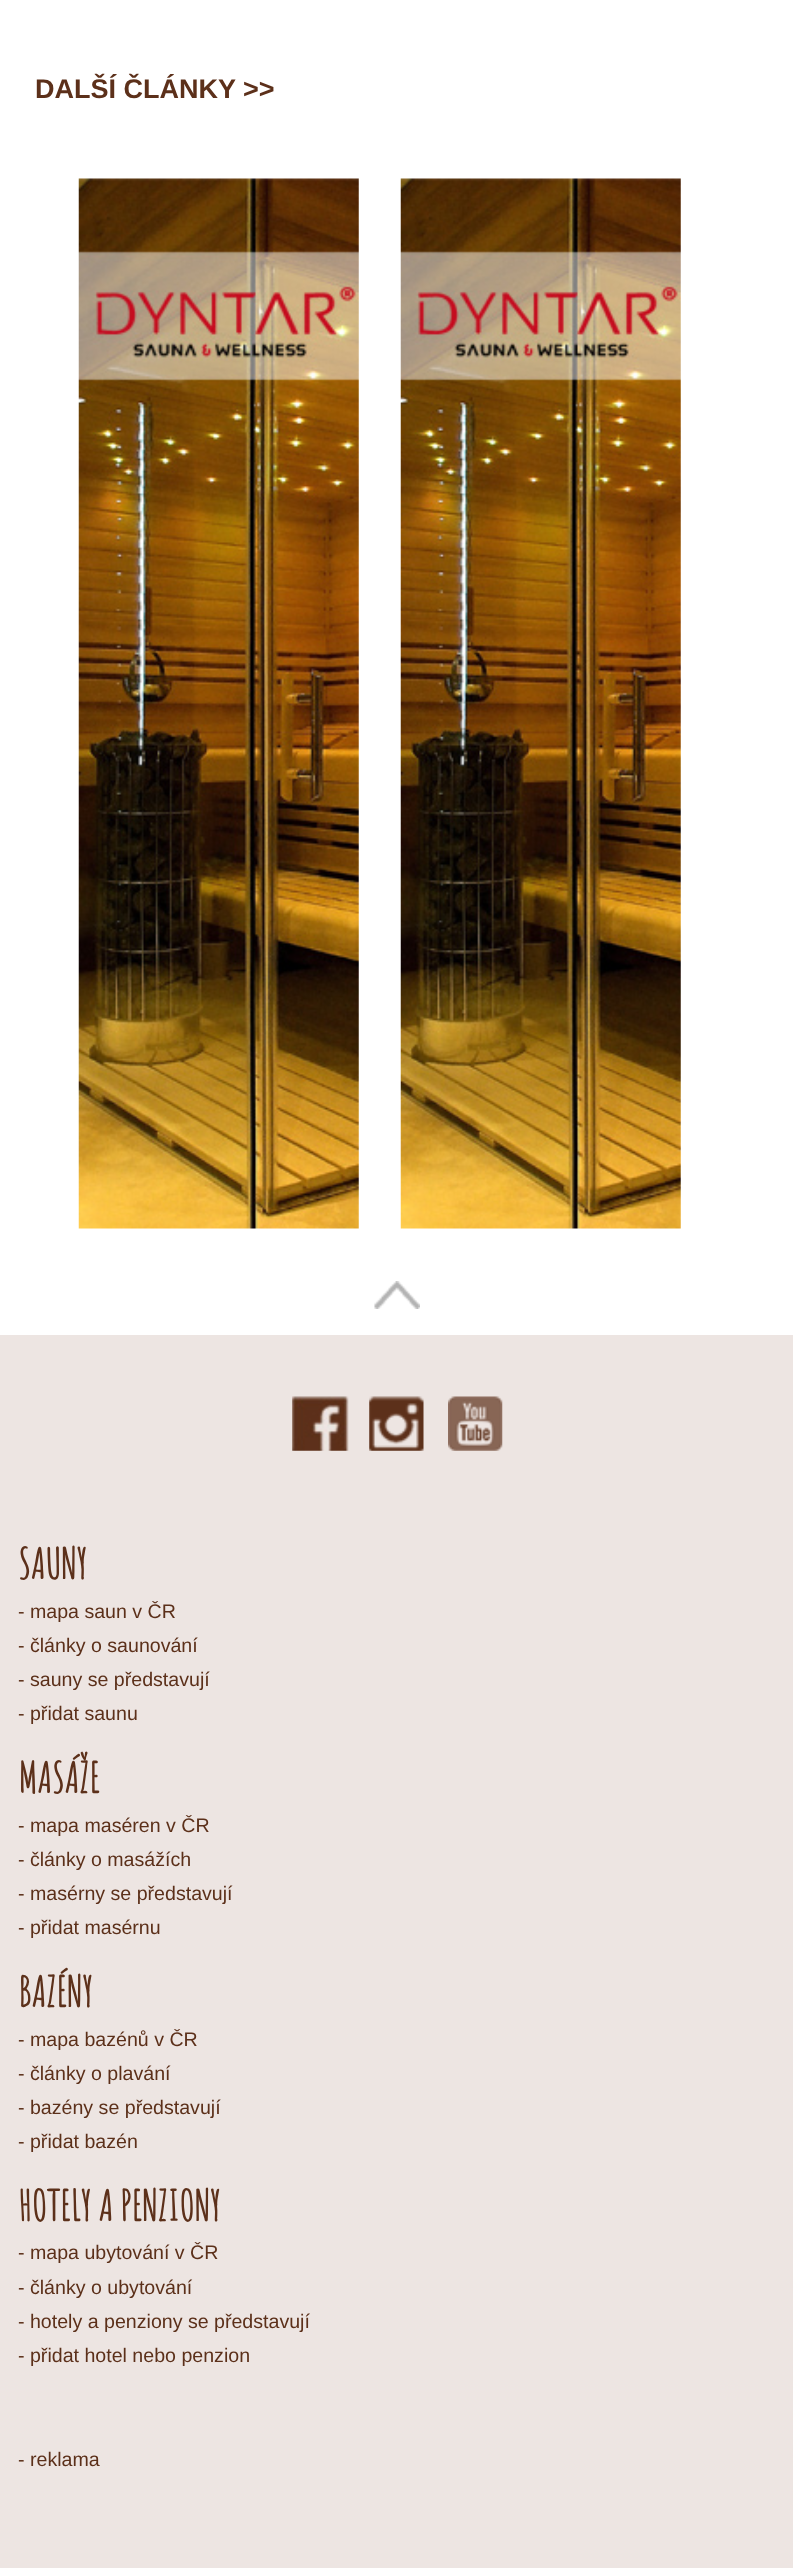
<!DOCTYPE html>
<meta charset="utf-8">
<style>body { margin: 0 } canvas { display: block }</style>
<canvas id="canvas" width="793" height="2568"></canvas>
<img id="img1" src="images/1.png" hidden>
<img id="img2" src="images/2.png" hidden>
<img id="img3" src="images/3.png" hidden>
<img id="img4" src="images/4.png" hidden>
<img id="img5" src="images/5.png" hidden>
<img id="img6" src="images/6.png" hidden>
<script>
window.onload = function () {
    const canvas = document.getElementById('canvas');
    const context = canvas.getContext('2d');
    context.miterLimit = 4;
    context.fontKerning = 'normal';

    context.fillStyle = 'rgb(255, 255, 255)';
    context.fillRect(0, 0, 793, 2568);
    context.drawImage(document.getElementById('img1'), 78, 178, 281, 1051);
    context.drawImage(document.getElementById('img2'), 400, 178, 281, 1051);
    context.drawImage(document.getElementById('img3'), 374, 1281, 46, 28);
    context.fillStyle = 'rgb(237, 229, 226)';
    context.fillRect(0, 1335, 793, 1233);
    context.drawImage(document.getElementById('img4'), 292, 1396, 57, 55);
    context.drawImage(document.getElementById('img5'), 369, 1396, 55, 55);
    context.drawImage(document.getElementById('img6'), 448, 1396, 55, 55);
    context.font = 'bold 27px Liberation Sans';
    context.fillStyle = 'rgb(92, 48, 26)';
    context.fillText('DALŠÍ ČLÁNKY >>', 35, 98);
    context.font = 'bold 41.5px Amatic SC';
    context.fillText('SAUNY', 18, 1579);
    context.font = '19.6px Liberation Sans';
    context.fillText('- mapa saun v ČR', 18, 1618);
    context.fillText('- články o saunování', 18, 1652);
    context.fillText('- sauny se představují', 18, 1686);
    context.fillText('- přidat saunu', 18, 1720);
    context.font = 'bold 41.5px Amatic SC';
    context.fillText('MASÁŽE', 18, 1793);
    context.font = '19.6px Liberation Sans';
    context.fillText('- mapa maséren v ČR', 18, 1832);
    context.fillText('- články o masážích', 18, 1866);
    context.fillText('- masérny se představují', 18, 1900);
    context.fillText('- přidat masérnu', 18, 1934);
    context.font = 'bold 41.5px Amatic SC';
    context.fillText('BAZÉNY', 18, 2007);
    context.font = '19.6px Liberation Sans';
    context.fillText('- mapa bazénů v ČR', 18, 2046);
    context.fillText('- články o plavání', 18, 2080);
    context.fillText('- bazény se představují', 18, 2114);
    context.fillText('- přidat bazén', 18, 2148);
    context.font = 'bold 41.5px Amatic SC';
    context.fillText('HOTELY A PENZIONY', 18, 2221);
    context.font = '19.6px Liberation Sans';
    context.fillText('- mapa ubytování v ČR', 18, 2259);
    context.fillText('- články o ubytování', 18, 2294);
    context.fillText('- hotely a penziony se představují', 18, 2328);
    context.fillText('- přidat hotel nebo penzion', 18, 2362);
    context.fillText('- reklama', 18, 2466);
};
</script>
